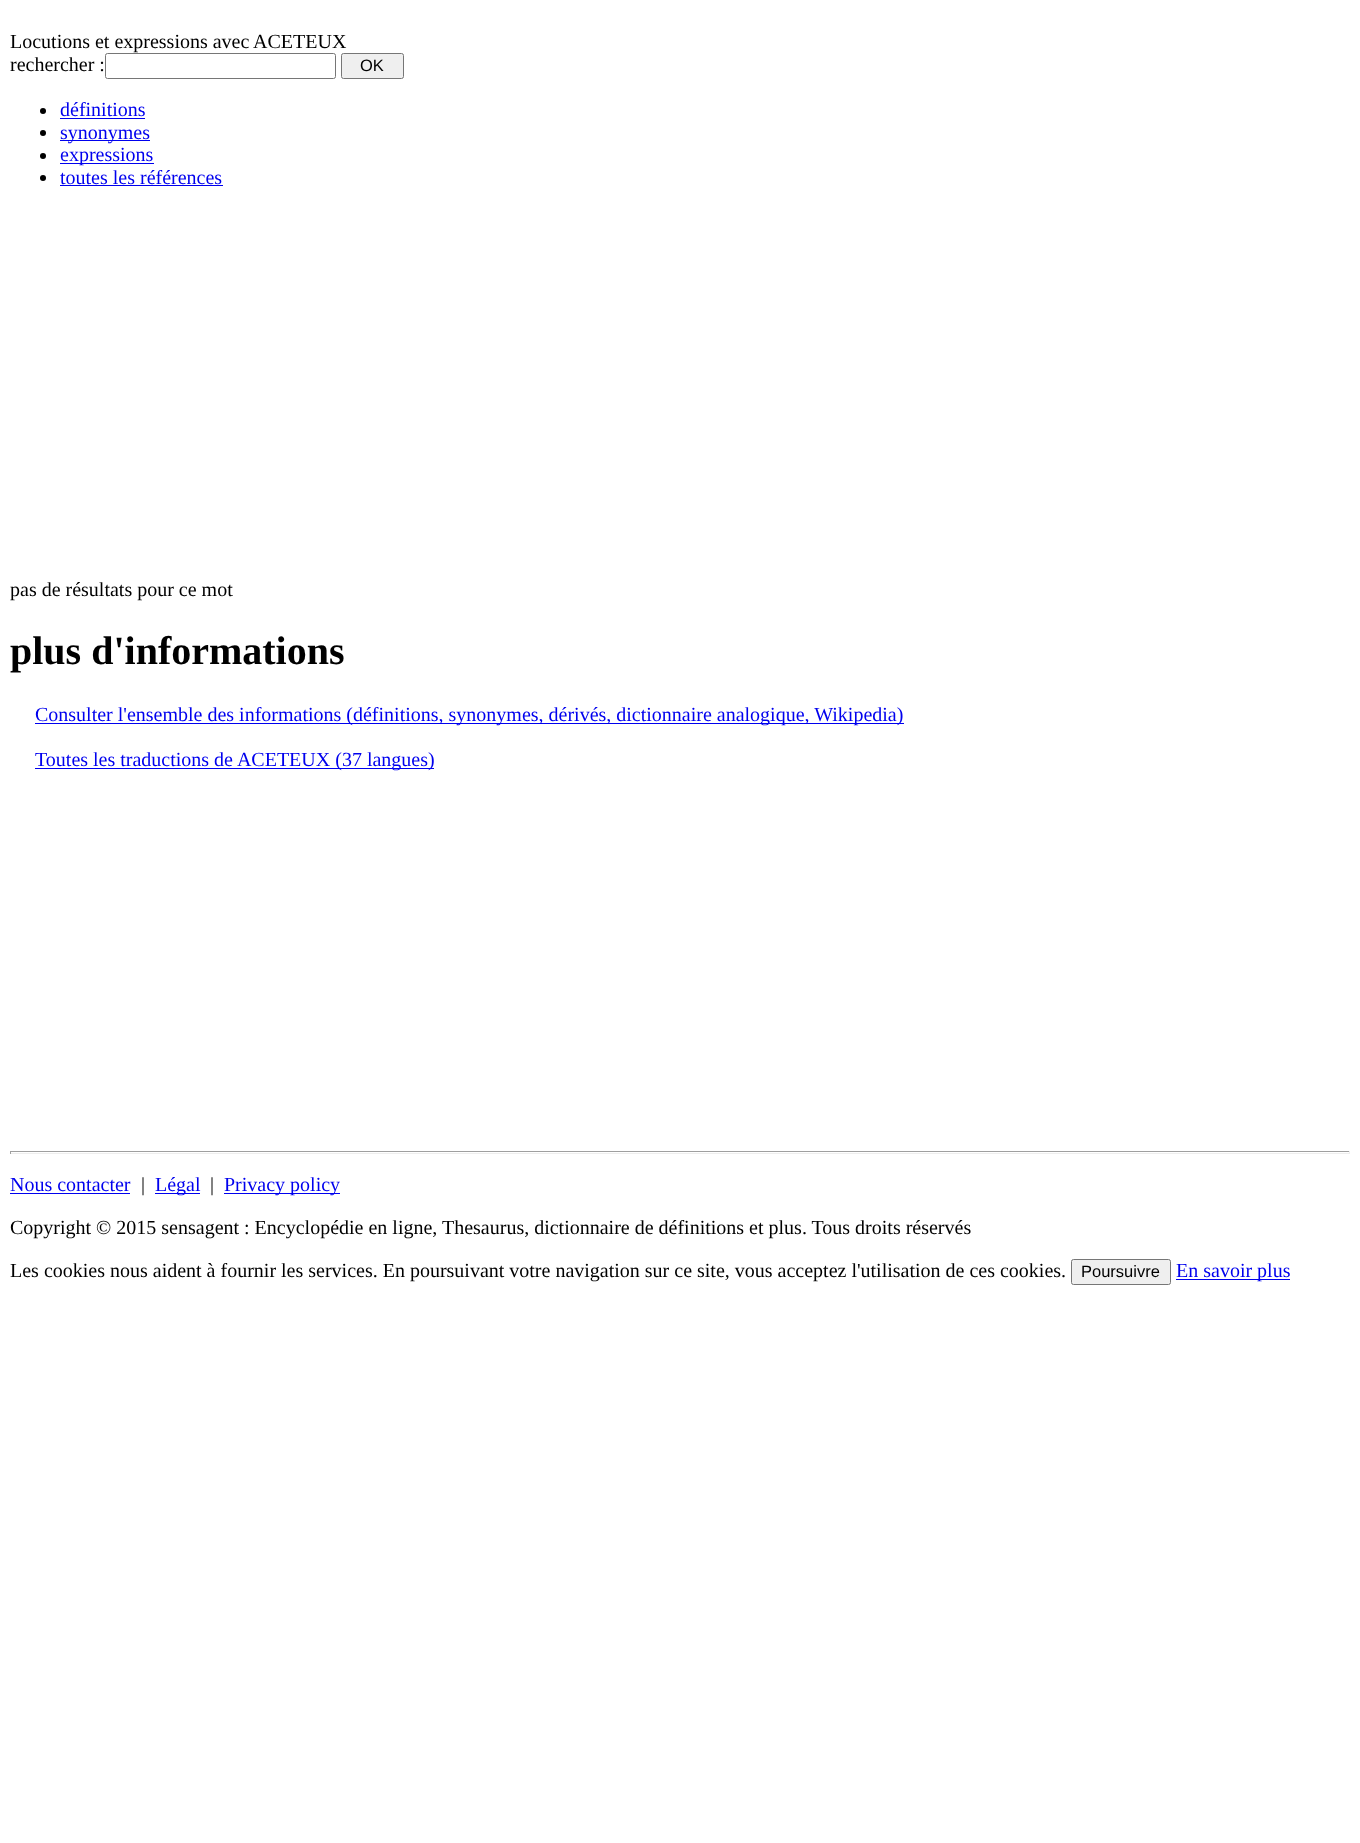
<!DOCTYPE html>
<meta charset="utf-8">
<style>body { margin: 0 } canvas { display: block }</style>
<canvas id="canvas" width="1360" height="1843"></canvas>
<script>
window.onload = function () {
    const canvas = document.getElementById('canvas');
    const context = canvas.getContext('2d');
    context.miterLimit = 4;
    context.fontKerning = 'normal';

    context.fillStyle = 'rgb(255, 255, 255)';
    context.fillRect(0, 0, 1360, 1843);
    context.beginPath();
    context.roundRect(105.5, 53.5, 230, 25, 2);
    context.strokeStyle = 'rgb(118, 118, 118)';
    context.stroke();
    context.fillStyle = 'rgb(239, 239, 239)';
    context.beginPath();
    context.roundRect(341.5, 53.5, 62, 25, 2);
    context.fill();
    context.stroke();
    context.fillStyle = 'rgb(0, 0, 0)';
    context.beginPath();
    context.arc(43, 111, 3, 0, 2 * Math.PI);
    context.fill();
    context.fillStyle = 'rgb(0, 0, 238)';
    context.fillRect(60, 118, 85, 1);
    context.fillStyle = 'rgb(0, 0, 0)';
    context.beginPath();
    context.arc(43, 133, 3, 0, 2 * Math.PI);
    context.fill();
    context.fillStyle = 'rgb(0, 0, 238)';
    context.fillRect(60, 140, 90, 1);
    context.fillStyle = 'rgb(0, 0, 0)';
    context.beginPath();
    context.arc(43, 156, 3, 0, 2 * Math.PI);
    context.fill();
    context.fillStyle = 'rgb(0, 0, 238)';
    context.fillRect(60, 163, 94, 1);
    context.fillStyle = 'rgb(0, 0, 0)';
    context.beginPath();
    context.arc(43, 178, 3, 0, 2 * Math.PI);
    context.fill();
    context.fillStyle = 'rgb(0, 0, 238)';
    context.fillRect(60, 185, 163, 1);
    context.fillRect(35, 723, 869, 1);
    context.fillRect(35, 768, 399, 1);
    context.fillStyle = 'rgb(159, 159, 159)';
    context.fillRect(10, 1151, 1340, 1);
    context.fillStyle = 'rgb(238, 238, 238)';
    context.fillRect(1349, 1151, 1, 3);
    context.fillRect(10, 1153, 1340, 1);
    context.fillStyle = 'rgb(159, 159, 159)';
    context.fillRect(10, 1151, 1, 3);
    context.fillStyle = 'rgb(0, 0, 238)';
    context.fillRect(10, 1193, 120, 1);
    context.fillRect(155, 1193, 45, 1);
    context.fillRect(224, 1193, 116, 1);
    context.fillStyle = 'rgb(239, 239, 239)';
    context.beginPath();
    context.roundRect(1071.5, 1259.5, 99, 25, 2);
    context.fill();
    context.stroke();
    context.fillStyle = 'rgb(0, 0, 238)';
    context.fillRect(1176, 1279, 114, 1);
    context.font = '20px Liberation Serif';
    context.fillStyle = 'rgb(0, 0, 0)';
    context.fillText('Locutions et expressions avec', 10, 48);
    context.fillText('ACETEUX', 253, 48);
    context.fillText('rechercher :', 10, 71);
    context.font = '16.5px Liberation Sans';
    context.fillText('OK', 360, 71);
    context.font = '20px Liberation Serif';
    context.fillStyle = 'rgb(0, 0, 238)';
    context.fillText('définitions', 60, 116);
    context.fillText('synonymes', 60, 139);
    context.fillText('expressions', 60, 161);
    context.fillText('toutes les références', 60, 184);
    context.fillStyle = 'rgb(0, 0, 0)';
    context.fillText('pas de résultats pour ce mot', 10, 596);
    context.font = 'bold 40px Liberation Serif';
    context.fillText('plus d\'informations', 10, 664);
    context.font = '20px Liberation Serif';
    context.fillStyle = 'rgb(0, 0, 238)';
    context.fillText('Consulter l\'ensemble des informations (définitions, synonymes, dérivés, dictionnaire analogique, Wikipedia)', 35, 721);
    context.fillText('Toutes les traductions de ACETEUX (37 langues)', 35, 766);
    context.fillText('Nous contacter', 10, 1191);
    context.fillStyle = 'rgb(0, 0, 0)';
    context.fillText('|', 141, 1191);
    context.fillStyle = 'rgb(0, 0, 238)';
    context.fillText('Légal', 155, 1191);
    context.fillStyle = 'rgb(0, 0, 0)';
    context.fillText('|', 210, 1191);
    context.fillStyle = 'rgb(0, 0, 238)';
    context.fillText('Privacy policy', 224, 1191);
    context.fillStyle = 'rgb(0, 0, 0)';
    context.fillText('Copyright © 2015 sensagent : Encyclopédie en ligne, Thesaurus, dictionnaire de définitions et plus. Tous droits réservés', 10, 1234);
    context.fillText('Les cookies nous aident à fournir les services. En poursuivant votre navigation sur ce site, vous acceptez l\'utilisation de ces cookies.', 10, 1277);
    context.font = '16.5px Liberation Sans';
    context.fillText('Poursuivre', 1081, 1277);
    context.font = '20px Liberation Serif';
    context.fillStyle = 'rgb(0, 0, 238)';
    context.fillText('En savoir plus', 1176, 1277);
};
</script>
